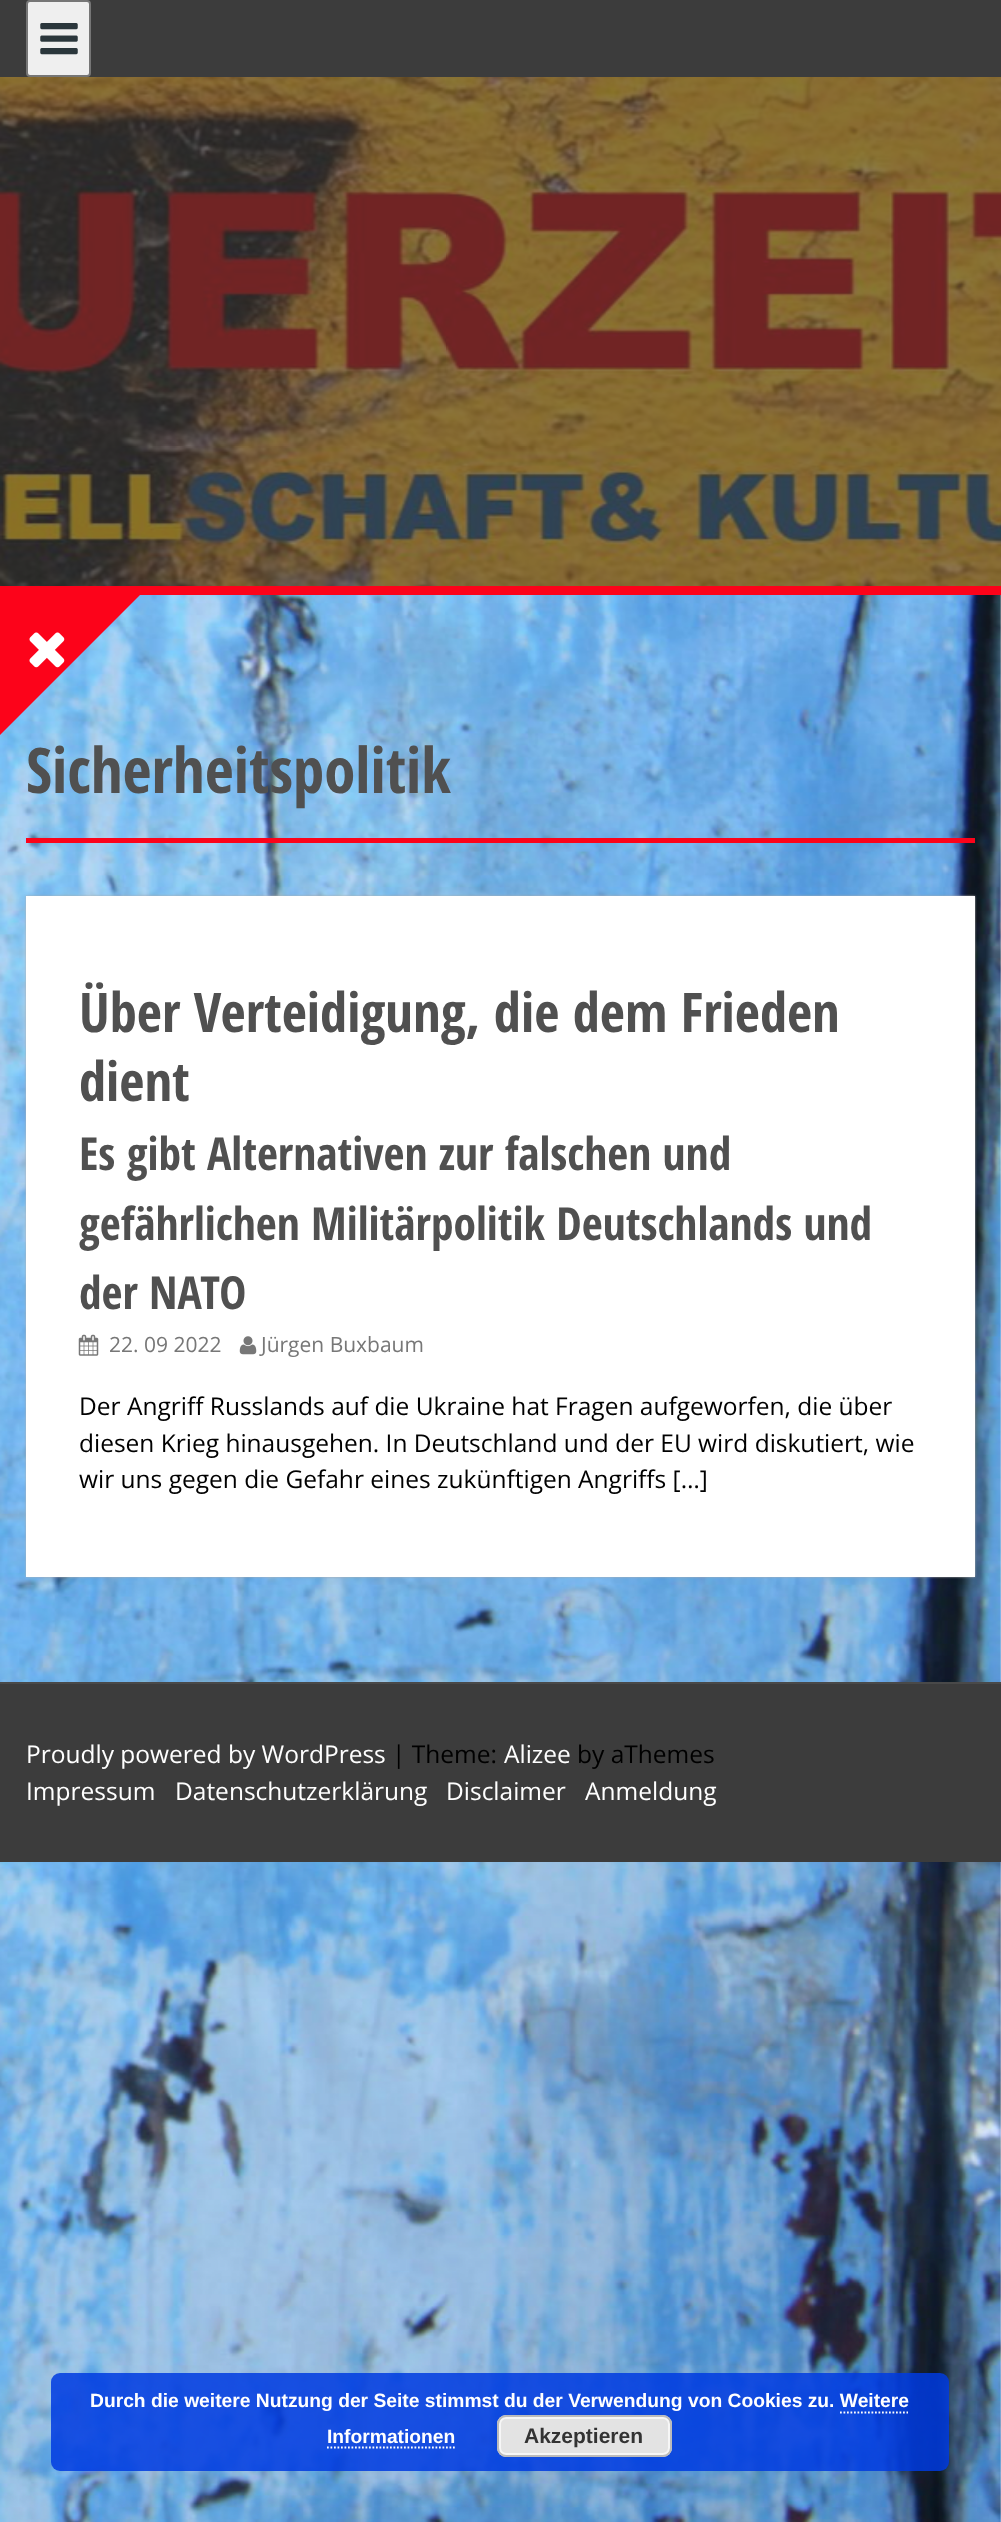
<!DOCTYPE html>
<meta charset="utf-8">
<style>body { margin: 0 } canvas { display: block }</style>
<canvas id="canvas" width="1001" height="2522"></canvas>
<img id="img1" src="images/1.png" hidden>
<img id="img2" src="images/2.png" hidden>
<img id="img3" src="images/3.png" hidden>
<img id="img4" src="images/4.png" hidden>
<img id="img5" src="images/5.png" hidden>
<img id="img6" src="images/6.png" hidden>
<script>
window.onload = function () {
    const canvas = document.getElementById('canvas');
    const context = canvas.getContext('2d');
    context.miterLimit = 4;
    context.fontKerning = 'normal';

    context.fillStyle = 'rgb(255, 255, 255)';
    context.fillRect(0, 0, 1001, 2522);
    context.drawImage(document.getElementById('img1'), 0, 595, 1001, 1927);
    context.fillStyle = 'rgb(60, 60, 60)';
    context.fillRect(0, 0, 1001, 586);
    context.fillStyle = 'rgb(252, 3, 26)';
    context.fillRect(0, 586, 1001, 9);
    context.fillStyle = 'rgb(239, 239, 239)';
    context.beginPath();
    context.roundRect(27, 1, 63, 75, 3);
    context.fill();
    context.strokeStyle = 'rgb(118, 118, 118)';
    context.lineWidth = 2;
    context.stroke();
    context.drawImage(document.getElementById('img2'), 40, 23, 38, 32);
    context.drawImage(document.getElementById('img3'), 0, 77, 1001, 509);
    context.fillStyle = 'rgb(252, 3, 26)';
    context.beginPath();
    context.moveTo(0, 735);
    context.lineTo(0, 595);
    context.lineTo(140, 595);
    context.closePath();
    context.fill();
    context.drawImage(document.getElementById('img4'), 29, 632, 36, 36);
    context.fillRect(26, 838, 949, 5);
    context.fillStyle = 'rgb(173, 173, 173)';
    context.filter = 'blur(1px)';
    context.beginPath();
    context.rect(26, 896, 949, 681);
    context.fill();
    context.filter = 'none';
    context.fillStyle = 'rgb(255, 255, 255)';
    context.fillRect(26, 896, 949, 681);
    context.drawImage(document.getElementById('img5'), 78, 1334, 21, 22);
    context.drawImage(document.getElementById('img6'), 239, 1336, 18, 19);
    context.fillStyle = 'rgb(60, 60, 60)';
    context.fillRect(0, 1684, 1001, 178);
    context.fillStyle = 'rgb(73, 73, 73)';
    context.fillRect(0, 1682, 1001, 2);
    context.fillStyle = 'rgba(0, 59, 224, 0.85)';
    context.beginPath();
    context.roundRect(51, 2373, 898, 98, 9);
    context.fill();
    context.beginPath();
    context.moveTo(840, 2412.5);
    context.lineTo(908, 2412.5);
    context.strokeStyle = 'rgb(255, 255, 255)';
    context.lineWidth = 1.8;
    context.setLineDash([1.75, 1.75]);
    context.stroke();
    context.beginPath();
    context.moveTo(327, 2447.5);
    context.lineTo(455, 2447.5);
    context.stroke();
    context.fillStyle = 'rgb(227, 227, 227)';
    context.beginPath();
    context.roundRect(497, 2415, 175, 42, 9);
    context.fill();
    context.beginPath();
    context.roundRect(500, 2418, 169, 36, 6);
    context.strokeStyle = 'rgb(246, 246, 246)';
    context.lineWidth = 2;
    context.setLineDash([]);
    context.stroke();
    context.beginPath();
    context.roundRect(498, 2416, 173, 40, 8);
    context.strokeStyle = 'rgb(187, 187, 187)';
    context.stroke();
    context.font = 'bold 63px Open Sans Condensed';
    context.fillStyle = 'rgb(80, 80, 80)';
    context.fillText('Sicherheitspolitik', 26, 793);
    context.font = 'bold 54.6px Open Sans Condensed';
    context.fillText('Über Verteidigung, die dem Frieden', 79, 1032);
    context.fillText('dient', 79, 1101);
    context.font = 'bold 45.5px Open Sans Condensed';
    context.fillText('Es gibt Alternativen zur falschen und', 79, 1170);
    context.fillText('gefährlichen Militärpolitik Deutschlands und', 79, 1240);
    context.fillText('der NATO', 79, 1309);
    context.font = '21px Open Sans';
    context.fillStyle = 'rgb(119, 119, 119)';
    context.fillText('22. 09 2022', 109, 1352);
    context.fillText('Jürgen Buxbaum', 261, 1352);
    context.font = '24.5px Open Sans';
    context.fillStyle = 'rgb(0, 0, 0)';
    context.fillText('Der Angriff Russlands auf die Ukraine hat Fragen aufgeworfen, die über', 79, 1415);
    context.fillText('diesen Krieg hinausgehen. In Deutschland und der EU wird diskutiert, wie', 79, 1452);
    context.fillText('wir uns gegen die Gefahr eines zukünftigen Angriffs […]', 79, 1488);
    context.fillStyle = 'rgb(255, 255, 255)';
    context.fillText('Proudly powered by WordPress', 26, 1763);
    context.fillStyle = 'rgb(0, 0, 0)';
    context.fillText('| Theme:', 392, 1763);
    context.fillStyle = 'rgb(255, 255, 255)';
    context.fillText('Alizee', 504, 1763);
    context.fillStyle = 'rgb(0, 0, 0)';
    context.fillText('by aThemes', 577, 1763);
    context.fillStyle = 'rgb(255, 255, 255)';
    context.fillText('Impressum', 26, 1800);
    context.fillText('Datenschutzerklärung', 175, 1800);
    context.fillText('Disclaimer', 446, 1800);
    context.fillText('Anmeldung', 585, 1800);
    context.font = 'bold 19.25px Liberation Sans';
    context.fillText('Durch die weitere Nutzung der Seite stimmst du der Verwendung von Cookies zu. Weitere', 90, 2407);
    context.fillText('Informationen', 327, 2443);
    context.font = 'bold 21px Liberation Sans';
    context.fillStyle = 'rgb(51, 51, 51)';
    context.fillText('Akzeptieren', 524, 2443);
};
</script>
